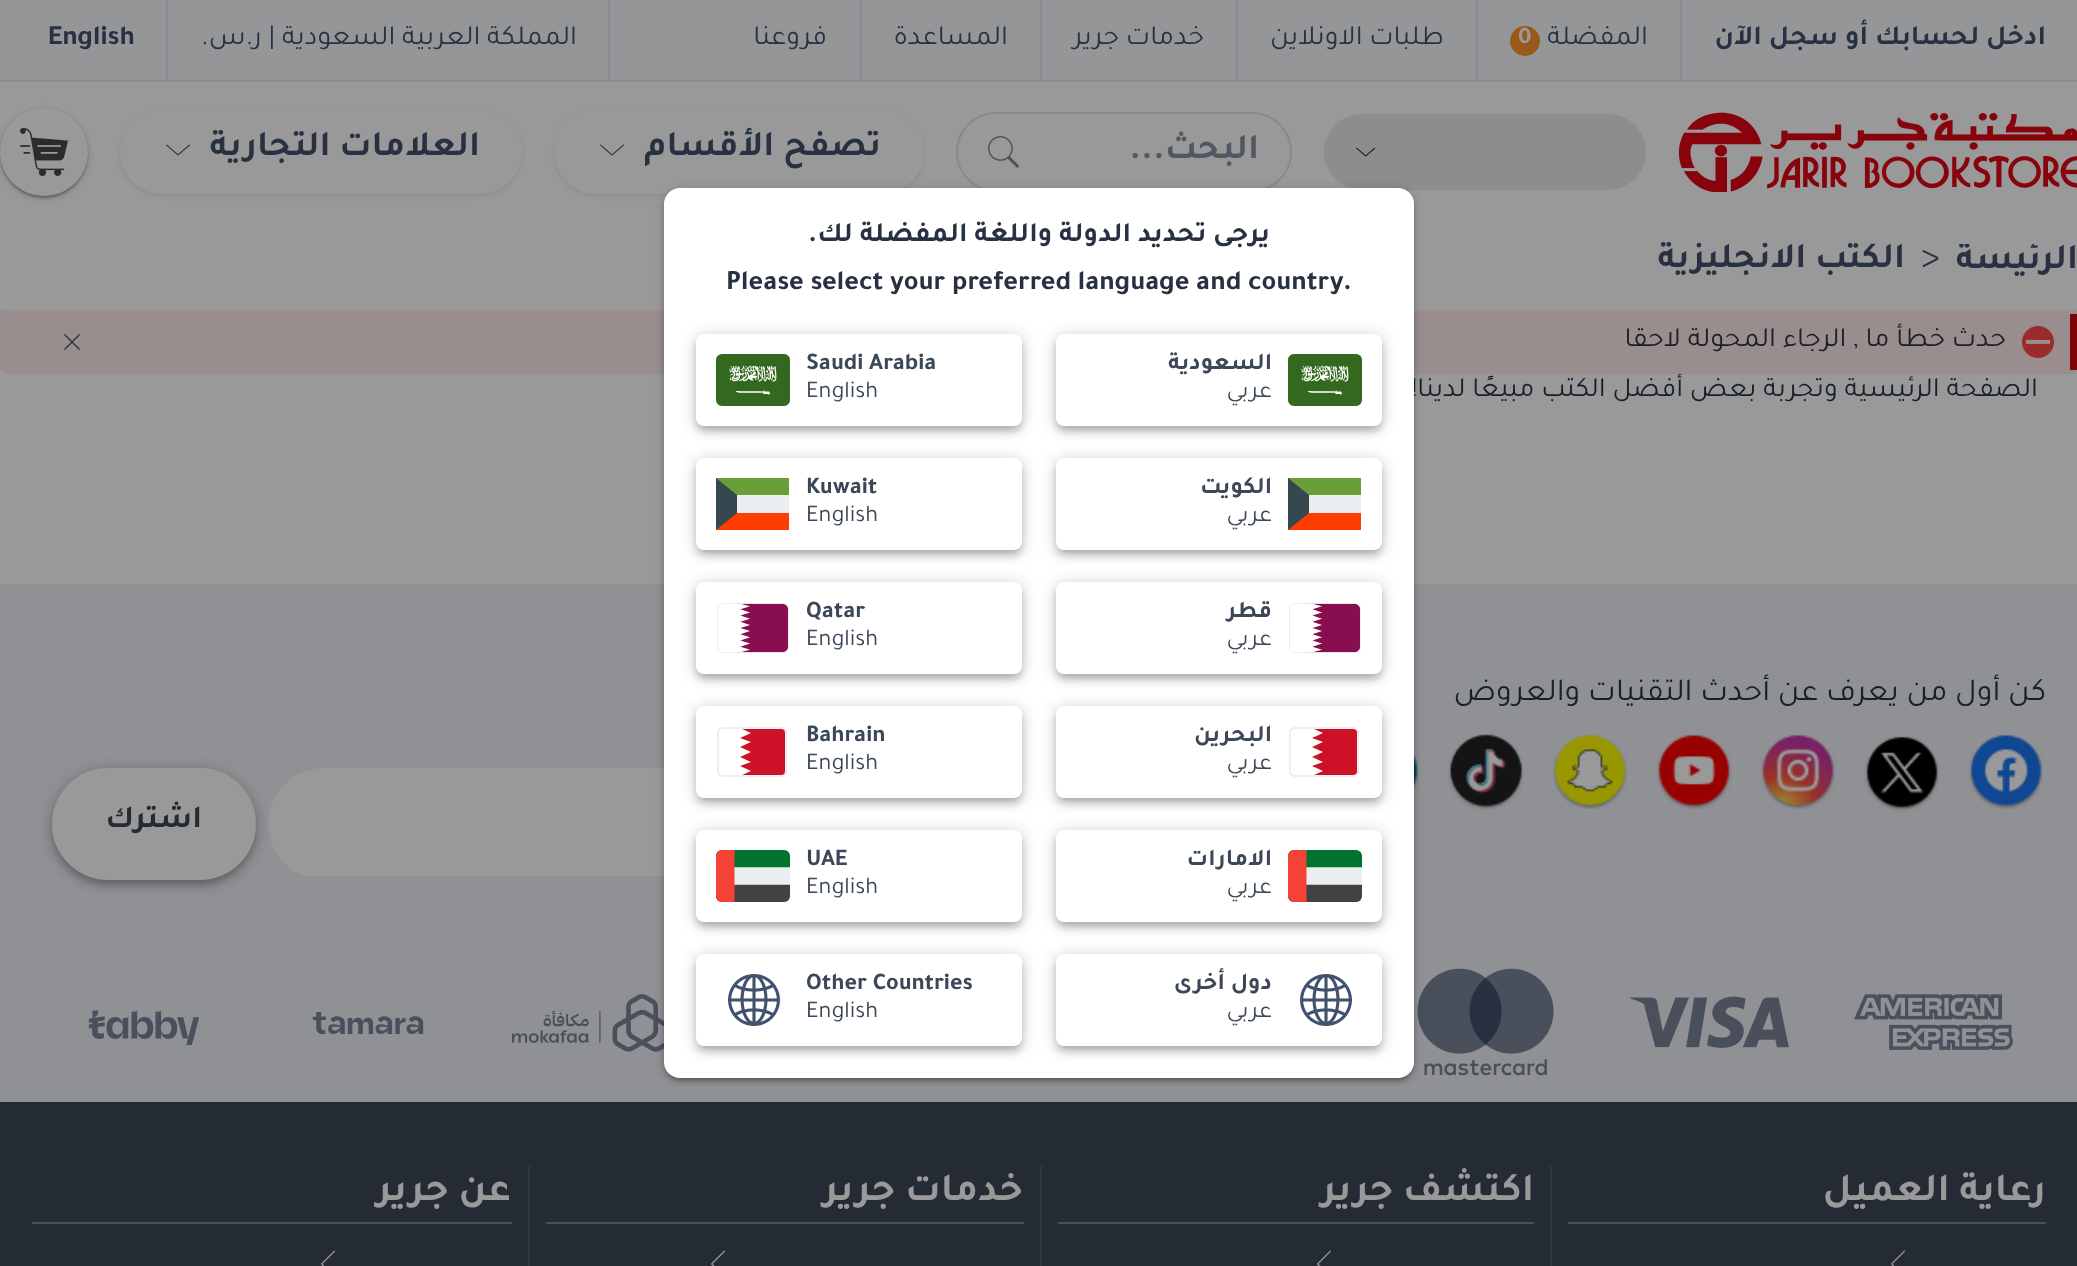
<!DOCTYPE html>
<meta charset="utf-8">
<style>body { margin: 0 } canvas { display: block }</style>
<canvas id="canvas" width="2077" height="1266"></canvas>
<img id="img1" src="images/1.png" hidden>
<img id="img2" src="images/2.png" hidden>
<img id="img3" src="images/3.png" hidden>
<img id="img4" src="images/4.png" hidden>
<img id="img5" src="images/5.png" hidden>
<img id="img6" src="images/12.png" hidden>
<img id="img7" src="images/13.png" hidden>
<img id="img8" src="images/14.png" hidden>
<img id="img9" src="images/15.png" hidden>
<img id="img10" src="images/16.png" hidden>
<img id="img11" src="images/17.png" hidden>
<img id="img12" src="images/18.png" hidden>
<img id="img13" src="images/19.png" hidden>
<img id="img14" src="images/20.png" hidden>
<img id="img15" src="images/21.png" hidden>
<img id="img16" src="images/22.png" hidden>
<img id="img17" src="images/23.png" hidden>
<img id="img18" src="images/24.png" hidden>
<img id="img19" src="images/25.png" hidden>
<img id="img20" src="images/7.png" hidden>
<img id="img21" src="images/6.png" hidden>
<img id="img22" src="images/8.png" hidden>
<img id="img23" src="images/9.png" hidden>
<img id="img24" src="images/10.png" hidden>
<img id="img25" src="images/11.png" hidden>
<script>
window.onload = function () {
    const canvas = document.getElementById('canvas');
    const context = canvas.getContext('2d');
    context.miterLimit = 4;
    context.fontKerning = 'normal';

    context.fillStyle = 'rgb(153, 153, 153)';
    context.fillRect(0, 0, 2077, 1266);
    context.fillStyle = 'rgba(0, 0, 0, 0.15)';
    context.filter = 'blur(10px)';
    context.beginPath();
    context.rect(0, 4, 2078, 310);
    context.fill();
    context.filter = 'none';
    context.fillStyle = 'rgb(153, 153, 153)';
    context.fillRect(0, 82, 2077, 228);
    context.fillStyle = 'rgb(149, 150, 151)';
    context.fillRect(0, 0, 2077, 80);
    context.fillStyle = 'rgb(137, 140, 145)';
    context.fillRect(0, 80, 2077, 2);
    context.fillRect(1680, 0, 2, 80);
    context.fillStyle = 'rgb(153, 89, 26)';
    context.beginPath();
    context.arc(1525, 41, 15, 0, 2 * Math.PI);
    context.fill();
    context.fillStyle = 'rgb(137, 140, 145)';
    context.fillRect(1476, 0, 2, 80);
    context.fillRect(1236, 0, 2, 80);
    context.fillRect(1040, 0, 2, 80);
    context.fillRect(860, 0, 2, 80);
    context.fillRect(608, 0, 2, 80);
    context.fillRect(166, 0, 2, 80);
    context.drawImage(document.getElementById('img1'), 1678, 112, 399, 80);
    context.fillStyle = 'rgb(139, 141, 143)';
    context.beginPath();
    context.roundRect(1324, 114, 322, 76, 38);
    context.fill();
    context.drawImage(document.getElementById('img2'), 1356, 147, 20, 10);
    context.beginPath();
    context.roundRect(957, 113, 334, 78, 39);
    context.strokeStyle = 'rgb(134, 138, 142)';
    context.lineWidth = 2;
    context.stroke();
    context.drawImage(document.getElementById('img3'), 988, 136, 32, 32);
    context.fillStyle = 'rgba(128, 128, 128, 0.5)';
    context.filter = 'blur(2px)';
    context.beginPath();
    context.roundRect(554, 112, 370, 84, 42);
    context.fill();
    context.filter = 'none';
    context.fillStyle = 'rgb(153, 153, 153)';
    context.beginPath();
    context.roundRect(554, 110, 370, 84, 42);
    context.fill();
    context.drawImage(document.getElementById('img4'), 600, 144, 24, 12);
    context.fillStyle = 'rgba(128, 128, 128, 0.5)';
    context.filter = 'blur(2px)';
    context.beginPath();
    context.roundRect(120, 112, 402, 84, 42);
    context.fill();
    context.filter = 'none';
    context.fillStyle = 'rgb(153, 153, 153)';
    context.beginPath();
    context.roundRect(120, 110, 402, 84, 42);
    context.fill();
    context.drawImage(document.getElementById('img4'), 166, 144, 24, 12);
    context.fillStyle = 'rgba(0, 0, 0, 0.14)';
    context.filter = 'blur(1px)';
    context.beginPath();
    context.roundRect(0, 110, 88, 88, 44);
    context.fill();
    context.filter = 'none';
    context.fillStyle = 'rgba(0, 0, 0, 0.12)';
    context.filter = 'blur(1px)';
    context.beginPath();
    context.roundRect(2, 114, 84, 84, 42);
    context.fill();
    context.filter = 'none';
    context.fillStyle = 'rgba(0, 0, 0, 0.2)';
    context.filter = 'blur(3px)';
    context.beginPath();
    context.roundRect(0, 110, 88, 88, 44);
    context.fill();
    context.filter = 'none';
    context.fillStyle = 'rgb(153, 153, 153)';
    context.beginPath();
    context.arc(44, 152, 44, 0, 2 * Math.PI);
    context.fill();
    context.drawImage(document.getElementById('img5'), 20, 128, 48, 48);
    context.fillStyle = 'rgb(143, 145, 148)';
    context.fillRect(0, 584, 2077, 518);
    context.drawImage(document.getElementById('img6'), 1969, 734, 74, 76);
    context.drawImage(document.getElementById('img7'), 1864, 736, 76, 76);
    context.drawImage(document.getElementById('img8'), 1761, 734, 74, 76);
    context.drawImage(document.getElementById('img9'), 1656, 734, 76, 76);
    context.drawImage(document.getElementById('img10'), 1553, 735, 74, 74);
    context.drawImage(document.getElementById('img11'), 1448, 734, 76, 76);
    context.drawImage(document.getElementById('img12'), 1414, 753, 5, 38);
    context.fillStyle = 'rgb(153, 153, 153)';
    context.beginPath();
    context.roundRect(268, 768, 756, 112, 56);
    context.fill();
    context.fillStyle = 'rgb(143, 145, 148)';
    context.fillRect(296, 876, 368, 4);
    context.fillStyle = 'rgba(0, 0, 0, 0.14)';
    context.filter = 'blur(4px)';
    context.beginPath();
    context.roundRect(52, 774, 204, 112, 56);
    context.fill();
    context.filter = 'none';
    context.fillStyle = 'rgba(0, 0, 0, 0.12)';
    context.filter = 'blur(3px)';
    context.beginPath();
    context.roundRect(56, 778, 196, 104, 52);
    context.fill();
    context.filter = 'none';
    context.fillStyle = 'rgba(0, 0, 0, 0.2)';
    context.filter = 'blur(8px)';
    context.beginPath();
    context.roundRect(52, 770, 204, 112, 56);
    context.fill();
    context.filter = 'none';
    context.fillStyle = 'rgb(153, 153, 153)';
    context.beginPath();
    context.roundRect(54, 770, 200, 108, 54);
    context.fill();
    context.strokeStyle = 'rgb(153, 153, 153)';
    context.lineWidth = 4;
    context.stroke();
    context.drawImage(document.getElementById('img13'), 1854, 994, 159, 56);
    context.drawImage(document.getElementById('img14'), 1630, 996, 159, 52);
    context.drawImage(document.getElementById('img15'), 1417, 968, 137, 108);
    context.drawImage(document.getElementById('img16'), 512, 994, 152, 58);
    context.drawImage(document.getElementById('img17'), 312, 1012, 112, 22);
    context.drawImage(document.getElementById('img18'), 88, 1010, 112, 35);
    context.fillStyle = 'rgb(36, 43, 53)';
    context.fillRect(0, 1102, 2077, 164);
    context.fillStyle = 'rgb(48, 54, 63)';
    context.fillRect(1550, 1166, 2, 100);
    context.fillStyle = 'rgb(73, 80, 92)';
    context.fillRect(1568, 1222, 478, 2);
    context.drawImage(document.getElementById('img19'), 1891, 1250, 14, 16);
    context.fillStyle = 'rgb(48, 54, 63)';
    context.fillRect(1040, 1166, 2, 100);
    context.fillStyle = 'rgb(73, 80, 92)';
    context.fillRect(1058, 1222, 476, 2);
    context.drawImage(document.getElementById('img19'), 1317, 1250, 14, 16);
    context.fillStyle = 'rgb(48, 54, 63)';
    context.fillRect(528, 1166, 2, 100);
    context.fillStyle = 'rgb(73, 80, 92)';
    context.fillRect(546, 1222, 478, 2);
    context.drawImage(document.getElementById('img19'), 711, 1250, 14, 16);
    context.fillRect(32, 1222, 480, 2);
    context.drawImage(document.getElementById('img19'), 321, 1250, 14, 16);
    context.direction = 'rtl';
    context.font = 'bold 28px Tajawal';
    context.fillStyle = 'rgb(40, 49, 66)';
    context.fillText('ادخل لحسابك أو سجل الآن', 2046, 44);
    context.font = '28px Tajawal';
    context.fillText('المفضلة', 1648, 44);
    context.direction = 'ltr';
    context.font = 'bold 24px Tajawal';
    context.fillStyle = 'rgb(153, 153, 153)';
    context.fillText('0', 1518, 43);
    context.direction = 'rtl';
    context.font = '28px Tajawal';
    context.fillStyle = 'rgb(40, 49, 66)';
    context.fillText('طلبات الاونلاين', 1444, 44);
    context.fillText('خدمات جرير', 1204, 44);
    context.fillText('المساعدة', 1008, 44);
    context.fillText('فروعنا', 827, 44);
    context.fillText('المملكة العربية السعودية | ر.س.', 577, 44);
    context.direction = 'ltr';
    context.font = 'bold 28px Tajawal';
    context.fillText('English', 48, 44);
    context.direction = 'rtl';
    context.font = 'bold 36px Tajawal';
    context.fillStyle = 'rgb(79, 88, 100)';
    context.fillText('البحث...', 1259, 158);
    context.fillStyle = 'rgb(40, 49, 66)';
    context.fillText('تصفح الأقسام', 881, 155);
    context.fillText('العلامات التجارية', 480, 155);
    context.save();
    context.beginPath();
    context.rect(1956, 244, 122, 36);
    context.clip();
    context.fillText('الرئيسة', 2078, 268);
    context.restore();
    context.direction = 'ltr';
    context.font = '36px Tajawal';
    context.fillText('>', 1921, 267);
    context.direction = 'rtl';
    context.font = 'bold 36px Tajawal';
    context.fillText('الكتب الانجليزية', 1905, 267);
    context.font = '28px Tajawal';
    context.fillStyle = 'rgb(23, 31, 41)';
    context.fillText('الصفحة الرئيسية وتجربة بعض أفضل الكتب مبيعًا لدينا!', 2038, 396);
    context.fillStyle = 'rgb(153, 141, 142)';
    context.beginPath();
    context.roundRect(0, 310, 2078, 64, 8);
    context.fill();
    context.drawImage(document.getElementById('img20'), 64, 334, 16, 16);
    context.fillStyle = 'rgb(23, 31, 41)';
    context.fillText('حدث خطأ ما , الرجاء المحولة لاحقا', 2006, 346);
    context.drawImage(document.getElementById('img21'), 2022, 326, 32, 32);
    context.fillStyle = 'rgb(127, 4, 8)';
    context.fillRect(2070, 314, 7, 56);
    context.fillStyle = 'rgba(0, 0, 0, 0.14)';
    context.filter = 'blur(2px)';
    context.beginPath();
    context.roundRect(664, 192, 750, 890, 16);
    context.fill();
    context.filter = 'none';
    context.fillStyle = 'rgba(0, 0, 0, 0.12)';
    context.filter = 'blur(1px)';
    context.beginPath();
    context.roundRect(668, 198, 742, 882, 12);
    context.fill();
    context.filter = 'none';
    context.fillStyle = 'rgba(0, 0, 0, 0.2)';
    context.filter = 'blur(5px)';
    context.beginPath();
    context.roundRect(664, 190, 750, 890, 16);
    context.fill();
    context.filter = 'none';
    context.fillStyle = 'rgb(255, 255, 255)';
    context.beginPath();
    context.roundRect(664, 188, 750, 890, 16);
    context.fill();
    context.font = 'bold 28px Tajawal';
    context.fillStyle = 'rgb(40, 49, 66)';
    context.fillText('يرجى تحديد الدولة واللغة المفضلة لك', 1270, 241);
    context.direction = 'ltr';
    context.fillText('.', 808, 241);
    context.fillText('Please select your preferred language and country.', 726, 289);
    context.fillStyle = 'rgba(0, 0, 0, 0.14)';
    context.filter = 'blur(4px)';
    context.beginPath();
    context.roundRect(1056, 340, 326, 92, 8);
    context.fill();
    context.filter = 'none';
    context.fillStyle = 'rgba(0, 0, 0, 0.12)';
    context.filter = 'blur(3px)';
    context.beginPath();
    context.roundRect(1060, 344, 318, 84, 4);
    context.fill();
    context.filter = 'none';
    context.fillStyle = 'rgba(0, 0, 0, 0.2)';
    context.filter = 'blur(8px)';
    context.beginPath();
    context.roundRect(1056, 336, 326, 92, 8);
    context.fill();
    context.filter = 'none';
    context.fillStyle = 'rgb(255, 255, 255)';
    context.beginPath();
    context.roundRect(1058, 336, 322, 88, 6);
    context.fill();
    context.strokeStyle = 'rgb(255, 255, 255)';
    context.stroke();
    context.drawImage(document.getElementById('img22'), 1288, 354, 74, 52);
    context.direction = 'rtl';
    context.font = 'bold 24px Tajawal';
    context.fillStyle = 'rgb(60, 72, 88)';
    context.fillText('السعودية', 1272, 369);
    context.font = '24px Tajawal';
    context.fillText('عربي', 1272, 397);
    context.fillStyle = 'rgba(0, 0, 0, 0.14)';
    context.filter = 'blur(4px)';
    context.beginPath();
    context.roundRect(696, 340, 326, 92, 8);
    context.fill();
    context.filter = 'none';
    context.fillStyle = 'rgba(0, 0, 0, 0.12)';
    context.filter = 'blur(3px)';
    context.beginPath();
    context.roundRect(700, 344, 318, 84, 4);
    context.fill();
    context.filter = 'none';
    context.fillStyle = 'rgba(0, 0, 0, 0.2)';
    context.filter = 'blur(8px)';
    context.beginPath();
    context.roundRect(696, 336, 326, 92, 8);
    context.fill();
    context.filter = 'none';
    context.fillStyle = 'rgb(255, 255, 255)';
    context.beginPath();
    context.roundRect(698, 336, 322, 88, 6);
    context.fill();
    context.stroke();
    context.direction = 'ltr';
    context.font = 'bold 24px Tajawal';
    context.fillStyle = 'rgb(60, 72, 88)';
    context.fillText('Saudi Arabia', 806, 369);
    context.font = '24px Tajawal';
    context.fillText('English', 806, 397);
    context.drawImage(document.getElementById('img22'), 716, 354, 74, 52);
    context.fillStyle = 'rgba(0, 0, 0, 0.14)';
    context.filter = 'blur(4px)';
    context.beginPath();
    context.roundRect(1056, 464, 326, 92, 8);
    context.fill();
    context.filter = 'none';
    context.fillStyle = 'rgba(0, 0, 0, 0.12)';
    context.filter = 'blur(3px)';
    context.beginPath();
    context.roundRect(1060, 468, 318, 84, 4);
    context.fill();
    context.filter = 'none';
    context.fillStyle = 'rgba(0, 0, 0, 0.2)';
    context.filter = 'blur(8px)';
    context.beginPath();
    context.roundRect(1056, 460, 326, 92, 8);
    context.fill();
    context.filter = 'none';
    context.fillStyle = 'rgb(255, 255, 255)';
    context.beginPath();
    context.roundRect(1058, 460, 322, 88, 6);
    context.fill();
    context.stroke();
    context.fillStyle = 'rgb(236, 239, 241)';
    context.fillRect(1309, 495, 52, 18);
    context.fillStyle = 'rgb(255, 61, 0)';
    context.fillRect(1288, 513, 73, 17);
    context.fillStyle = 'rgb(104, 159, 56)';
    context.fillRect(1288, 478, 73, 17);
    context.fillStyle = 'rgb(55, 71, 79)';
    context.beginPath();
    context.moveTo(1288, 478);
    context.lineTo(1309, 495);
    context.lineTo(1309, 513);
    context.lineTo(1288, 530);
    context.closePath();
    context.fill();
    context.direction = 'rtl';
    context.font = 'bold 24px Tajawal';
    context.fillStyle = 'rgb(60, 72, 88)';
    context.fillText('الكويت', 1272, 493);
    context.font = '24px Tajawal';
    context.fillText('عربي', 1272, 521);
    context.fillStyle = 'rgba(0, 0, 0, 0.14)';
    context.filter = 'blur(4px)';
    context.beginPath();
    context.roundRect(696, 464, 326, 92, 8);
    context.fill();
    context.filter = 'none';
    context.fillStyle = 'rgba(0, 0, 0, 0.12)';
    context.filter = 'blur(3px)';
    context.beginPath();
    context.roundRect(700, 468, 318, 84, 4);
    context.fill();
    context.filter = 'none';
    context.fillStyle = 'rgba(0, 0, 0, 0.2)';
    context.filter = 'blur(8px)';
    context.beginPath();
    context.roundRect(696, 460, 326, 92, 8);
    context.fill();
    context.filter = 'none';
    context.fillStyle = 'rgb(255, 255, 255)';
    context.beginPath();
    context.roundRect(698, 460, 322, 88, 6);
    context.fill();
    context.stroke();
    context.direction = 'ltr';
    context.font = 'bold 24px Tajawal';
    context.fillStyle = 'rgb(60, 72, 88)';
    context.fillText('Kuwait', 806, 493);
    context.font = '24px Tajawal';
    context.fillText('English', 806, 521);
    context.fillStyle = 'rgb(236, 239, 241)';
    context.fillRect(737, 495, 52, 18);
    context.fillStyle = 'rgb(255, 61, 0)';
    context.fillRect(716, 513, 73, 17);
    context.fillStyle = 'rgb(104, 159, 56)';
    context.fillRect(716, 478, 73, 17);
    context.fillStyle = 'rgb(55, 71, 79)';
    context.beginPath();
    context.moveTo(716, 478);
    context.lineTo(737, 495);
    context.lineTo(737, 513);
    context.lineTo(716, 530);
    context.closePath();
    context.fill();
    context.fillStyle = 'rgba(0, 0, 0, 0.14)';
    context.filter = 'blur(4px)';
    context.beginPath();
    context.roundRect(1056, 588, 326, 92, 8);
    context.fill();
    context.filter = 'none';
    context.fillStyle = 'rgba(0, 0, 0, 0.12)';
    context.filter = 'blur(3px)';
    context.beginPath();
    context.roundRect(1060, 592, 318, 84, 4);
    context.fill();
    context.filter = 'none';
    context.fillStyle = 'rgba(0, 0, 0, 0.2)';
    context.filter = 'blur(8px)';
    context.beginPath();
    context.roundRect(1056, 584, 326, 92, 8);
    context.fill();
    context.filter = 'none';
    context.fillStyle = 'rgb(255, 255, 255)';
    context.beginPath();
    context.roundRect(1058, 584, 322, 88, 6);
    context.fill();
    context.stroke();
    context.drawImage(document.getElementById('img23'), 1289, 603, 72, 50);
    context.direction = 'rtl';
    context.font = 'bold 24px Tajawal';
    context.fillStyle = 'rgb(60, 72, 88)';
    context.fillText('قطر', 1272, 617);
    context.font = '24px Tajawal';
    context.fillText('عربي', 1272, 645);
    context.fillStyle = 'rgba(0, 0, 0, 0.14)';
    context.filter = 'blur(4px)';
    context.beginPath();
    context.roundRect(696, 588, 326, 92, 8);
    context.fill();
    context.filter = 'none';
    context.fillStyle = 'rgba(0, 0, 0, 0.12)';
    context.filter = 'blur(3px)';
    context.beginPath();
    context.roundRect(700, 592, 318, 84, 4);
    context.fill();
    context.filter = 'none';
    context.fillStyle = 'rgba(0, 0, 0, 0.2)';
    context.filter = 'blur(8px)';
    context.beginPath();
    context.roundRect(696, 584, 326, 92, 8);
    context.fill();
    context.filter = 'none';
    context.fillStyle = 'rgb(255, 255, 255)';
    context.beginPath();
    context.roundRect(698, 584, 322, 88, 6);
    context.fill();
    context.stroke();
    context.direction = 'ltr';
    context.font = 'bold 24px Tajawal';
    context.fillStyle = 'rgb(60, 72, 88)';
    context.fillText('Qatar', 806, 617);
    context.font = '24px Tajawal';
    context.fillText('English', 806, 645);
    context.drawImage(document.getElementById('img23'), 717, 603, 72, 50);
    context.fillStyle = 'rgba(0, 0, 0, 0.14)';
    context.filter = 'blur(4px)';
    context.beginPath();
    context.roundRect(1056, 712, 326, 92, 8);
    context.fill();
    context.filter = 'none';
    context.fillStyle = 'rgba(0, 0, 0, 0.12)';
    context.filter = 'blur(3px)';
    context.beginPath();
    context.roundRect(1060, 716, 318, 84, 4);
    context.fill();
    context.filter = 'none';
    context.fillStyle = 'rgba(0, 0, 0, 0.2)';
    context.filter = 'blur(8px)';
    context.beginPath();
    context.roundRect(1056, 708, 326, 92, 8);
    context.fill();
    context.filter = 'none';
    context.fillStyle = 'rgb(255, 255, 255)';
    context.beginPath();
    context.roundRect(1058, 708, 322, 88, 6);
    context.fill();
    context.stroke();
    context.fillStyle = 'rgb(206, 17, 38)';
    context.beginPath();
    context.moveTo(1353, 728);
    context.lineTo(1312, 728);
    context.lineTo(1323, 733);
    context.lineTo(1312, 738);
    context.lineTo(1323, 742);
    context.lineTo(1312, 747);
    context.lineTo(1323, 752);
    context.lineTo(1312, 757);
    context.lineTo(1323, 762);
    context.lineTo(1312, 766);
    context.lineTo(1323, 771);
    context.lineTo(1312, 776);
    context.lineTo(1353, 776);
    context.bezierCurveTo(1356, 776, 1359, 774, 1359, 771);
    context.lineTo(1359, 733);
    context.bezierCurveTo(1359, 730, 1356, 728, 1353, 728);
    context.closePath();
    context.fill();
    context.beginPath();
    context.roundRect(1290, 728, 68, 48, 5);
    context.strokeStyle = 'rgb(236, 239, 241)';
    context.lineWidth = 2;
    context.stroke();
    context.direction = 'rtl';
    context.font = 'bold 24px Tajawal';
    context.fillStyle = 'rgb(60, 72, 88)';
    context.fillText('البحرين', 1272, 741);
    context.font = '24px Tajawal';
    context.fillText('عربي', 1272, 769);
    context.fillStyle = 'rgba(0, 0, 0, 0.14)';
    context.filter = 'blur(4px)';
    context.beginPath();
    context.roundRect(696, 712, 326, 92, 8);
    context.fill();
    context.filter = 'none';
    context.fillStyle = 'rgba(0, 0, 0, 0.12)';
    context.filter = 'blur(3px)';
    context.beginPath();
    context.roundRect(700, 716, 318, 84, 4);
    context.fill();
    context.filter = 'none';
    context.fillStyle = 'rgba(0, 0, 0, 0.2)';
    context.filter = 'blur(8px)';
    context.beginPath();
    context.roundRect(696, 708, 326, 92, 8);
    context.fill();
    context.filter = 'none';
    context.fillStyle = 'rgb(255, 255, 255)';
    context.beginPath();
    context.roundRect(698, 708, 322, 88, 6);
    context.fill();
    context.strokeStyle = 'rgb(255, 255, 255)';
    context.lineWidth = 4;
    context.stroke();
    context.direction = 'ltr';
    context.font = 'bold 24px Tajawal';
    context.fillStyle = 'rgb(60, 72, 88)';
    context.fillText('Bahrain', 806, 741);
    context.font = '24px Tajawal';
    context.fillText('English', 806, 769);
    context.fillStyle = 'rgb(206, 17, 38)';
    context.beginPath();
    context.moveTo(781, 728);
    context.lineTo(740, 728);
    context.lineTo(751, 733);
    context.lineTo(740, 738);
    context.lineTo(751, 742);
    context.lineTo(740, 747);
    context.lineTo(751, 752);
    context.lineTo(740, 757);
    context.lineTo(751, 762);
    context.lineTo(740, 766);
    context.lineTo(751, 771);
    context.lineTo(740, 776);
    context.lineTo(781, 776);
    context.bezierCurveTo(784, 776, 787, 774, 787, 771);
    context.lineTo(787, 733);
    context.bezierCurveTo(787, 730, 784, 728, 781, 728);
    context.closePath();
    context.fill();
    context.beginPath();
    context.roundRect(718, 728, 68, 48, 5);
    context.strokeStyle = 'rgb(236, 239, 241)';
    context.lineWidth = 2;
    context.stroke();
    context.fillStyle = 'rgba(0, 0, 0, 0.14)';
    context.filter = 'blur(4px)';
    context.beginPath();
    context.roundRect(1056, 836, 326, 92, 8);
    context.fill();
    context.filter = 'none';
    context.fillStyle = 'rgba(0, 0, 0, 0.12)';
    context.filter = 'blur(3px)';
    context.beginPath();
    context.roundRect(1060, 840, 318, 84, 4);
    context.fill();
    context.filter = 'none';
    context.fillStyle = 'rgba(0, 0, 0, 0.2)';
    context.filter = 'blur(8px)';
    context.beginPath();
    context.roundRect(1056, 832, 326, 92, 8);
    context.fill();
    context.filter = 'none';
    context.fillStyle = 'rgb(255, 255, 255)';
    context.beginPath();
    context.roundRect(1058, 832, 322, 88, 6);
    context.fill();
    context.strokeStyle = 'rgb(255, 255, 255)';
    context.lineWidth = 4;
    context.stroke();
    context.drawImage(document.getElementById('img24'), 1288, 850, 74, 52);
    context.direction = 'rtl';
    context.font = 'bold 24px Tajawal';
    context.fillStyle = 'rgb(60, 72, 88)';
    context.fillText('الامارات', 1272, 865);
    context.font = '24px Tajawal';
    context.fillText('عربي', 1272, 893);
    context.fillStyle = 'rgba(0, 0, 0, 0.14)';
    context.filter = 'blur(4px)';
    context.beginPath();
    context.roundRect(696, 836, 326, 92, 8);
    context.fill();
    context.filter = 'none';
    context.fillStyle = 'rgba(0, 0, 0, 0.12)';
    context.filter = 'blur(3px)';
    context.beginPath();
    context.roundRect(700, 840, 318, 84, 4);
    context.fill();
    context.filter = 'none';
    context.fillStyle = 'rgba(0, 0, 0, 0.2)';
    context.filter = 'blur(8px)';
    context.beginPath();
    context.roundRect(696, 832, 326, 92, 8);
    context.fill();
    context.filter = 'none';
    context.fillStyle = 'rgb(255, 255, 255)';
    context.beginPath();
    context.roundRect(698, 832, 322, 88, 6);
    context.fill();
    context.stroke();
    context.direction = 'ltr';
    context.font = 'bold 24px Tajawal';
    context.fillStyle = 'rgb(60, 72, 88)';
    context.fillText('UAE', 806, 865);
    context.font = '24px Tajawal';
    context.fillText('English', 806, 893);
    context.drawImage(document.getElementById('img24'), 716, 850, 74, 52);
    context.fillStyle = 'rgba(0, 0, 0, 0.14)';
    context.filter = 'blur(4px)';
    context.beginPath();
    context.roundRect(1056, 960, 326, 92, 8);
    context.fill();
    context.filter = 'none';
    context.fillStyle = 'rgba(0, 0, 0, 0.12)';
    context.filter = 'blur(3px)';
    context.beginPath();
    context.roundRect(1060, 964, 318, 84, 4);
    context.fill();
    context.filter = 'none';
    context.fillStyle = 'rgba(0, 0, 0, 0.2)';
    context.filter = 'blur(8px)';
    context.beginPath();
    context.roundRect(1056, 956, 326, 92, 8);
    context.fill();
    context.filter = 'none';
    context.fillStyle = 'rgb(255, 255, 255)';
    context.beginPath();
    context.roundRect(1058, 956, 322, 88, 6);
    context.fill();
    context.stroke();
    context.drawImage(document.getElementById('img25'), 1300, 974, 52, 52);
    context.direction = 'rtl';
    context.font = 'bold 24px Tajawal';
    context.fillStyle = 'rgb(60, 72, 88)';
    context.fillText('دول أخرى', 1272, 989);
    context.font = '24px Tajawal';
    context.fillText('عربي', 1272, 1017);
    context.fillStyle = 'rgba(0, 0, 0, 0.14)';
    context.filter = 'blur(4px)';
    context.beginPath();
    context.roundRect(696, 960, 326, 92, 8);
    context.fill();
    context.filter = 'none';
    context.fillStyle = 'rgba(0, 0, 0, 0.12)';
    context.filter = 'blur(3px)';
    context.beginPath();
    context.roundRect(700, 964, 318, 84, 4);
    context.fill();
    context.filter = 'none';
    context.fillStyle = 'rgba(0, 0, 0, 0.2)';
    context.filter = 'blur(8px)';
    context.beginPath();
    context.roundRect(696, 956, 326, 92, 8);
    context.fill();
    context.filter = 'none';
    context.fillStyle = 'rgb(255, 255, 255)';
    context.beginPath();
    context.roundRect(698, 956, 322, 88, 6);
    context.fill();
    context.stroke();
    context.direction = 'ltr';
    context.font = 'bold 24px Tajawal';
    context.fillStyle = 'rgb(60, 72, 88)';
    context.fillText('Other Countries', 806, 989);
    context.font = '24px Tajawal';
    context.fillText('English', 806, 1017);
    context.drawImage(document.getElementById('img25'), 728, 974, 52, 52);
    context.direction = 'rtl';
    context.font = '32px Tajawal';
    context.fillStyle = 'rgb(23, 31, 41)';
    context.fillText('كن أول من يعرف عن أحدث التقنيات والعروض', 2046, 700);
    context.font = 'bold 32px Tajawal';
    context.fillStyle = 'rgb(36, 43, 53)';
    context.fillText('اشترك', 202, 827);
    context.font = 'bold 40px Tajawal';
    context.fillStyle = 'rgb(153, 153, 153)';
    context.fillText('رعاية العميل', 2046, 1200);
    context.fillText('اكتشف جرير', 1534, 1200);
    context.fillText('خدمات جرير', 1023, 1200);
    context.fillText('عن جرير', 511, 1200);
};
</script>
